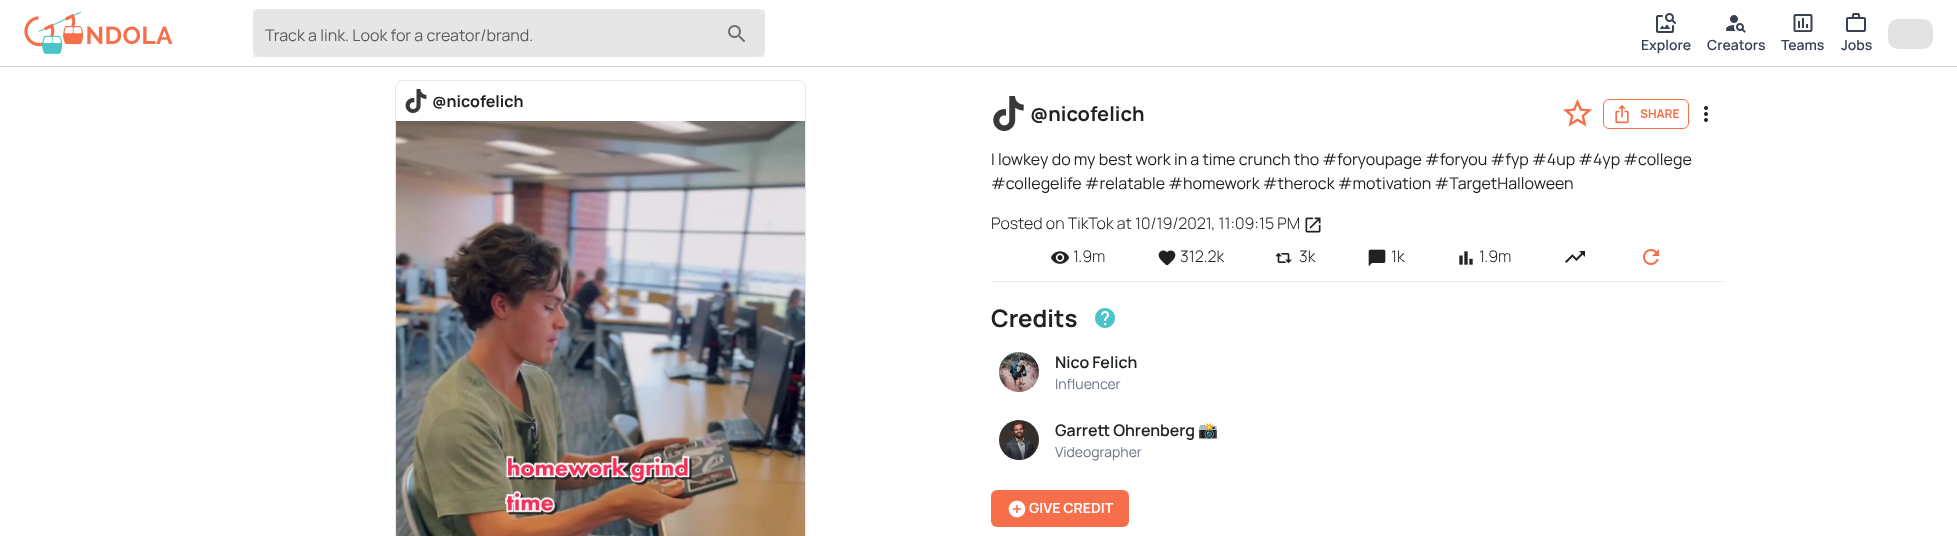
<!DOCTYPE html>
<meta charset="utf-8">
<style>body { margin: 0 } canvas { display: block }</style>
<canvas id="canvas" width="1957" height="536"></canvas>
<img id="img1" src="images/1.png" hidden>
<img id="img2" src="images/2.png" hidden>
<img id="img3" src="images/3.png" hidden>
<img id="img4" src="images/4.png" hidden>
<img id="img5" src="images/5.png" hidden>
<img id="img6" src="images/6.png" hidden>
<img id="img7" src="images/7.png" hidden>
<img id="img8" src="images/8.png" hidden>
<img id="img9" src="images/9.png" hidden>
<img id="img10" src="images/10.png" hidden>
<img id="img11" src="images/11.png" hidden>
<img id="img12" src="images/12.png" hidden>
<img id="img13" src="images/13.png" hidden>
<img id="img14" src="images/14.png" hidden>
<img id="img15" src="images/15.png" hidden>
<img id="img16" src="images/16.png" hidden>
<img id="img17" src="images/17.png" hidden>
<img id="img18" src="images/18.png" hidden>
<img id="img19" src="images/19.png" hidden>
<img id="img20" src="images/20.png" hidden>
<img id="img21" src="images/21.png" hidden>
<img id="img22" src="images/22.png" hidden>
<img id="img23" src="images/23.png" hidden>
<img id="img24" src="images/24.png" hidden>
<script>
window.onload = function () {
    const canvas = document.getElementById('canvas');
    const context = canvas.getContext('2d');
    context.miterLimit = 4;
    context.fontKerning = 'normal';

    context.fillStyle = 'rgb(255, 255, 255)';
    context.fillRect(0, 0, 1957, 536);
    context.fillStyle = 'rgb(206, 207, 211)';
    context.fillRect(0, 66, 1957, 1);
    context.drawImage(document.getElementById('img1'), 24, 11, 149, 43);
    context.fillStyle = 'rgb(245, 245, 245)';
    context.beginPath();
    context.roundRect(253, 9, 512, 48, 8);
    context.fill();
    context.fillStyle = 'rgba(0, 0, 0, 0.06)';
    context.fillRect(253, 9, 512, 48);
    context.drawImage(document.getElementById('img2'), 728, 25, 17, 17);
    context.drawImage(document.getElementById('img3'), 1656, 13, 20, 20);
    context.drawImage(document.getElementById('img4'), 1726, 15, 20, 18);
    context.drawImage(document.getElementById('img5'), 1793, 14, 20, 18);
    context.drawImage(document.getElementById('img6'), 1846, 13, 20, 19);
    context.fillStyle = 'rgb(227, 227, 227)';
    context.beginPath();
    context.roundRect(1888, 19, 45, 30, 10);
    context.fill();
    context.beginPath();
    context.roundRect(395.5, 80.5, 410, 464, 7.5);
    context.strokeStyle = 'rgb(229, 231, 235)';
    context.stroke();
    context.drawImage(document.getElementById('img7'), 405, 89, 22, 24);
    context.drawImage(document.getElementById('img8'), 396, 121, 409, 415);
    context.drawImage(document.getElementById('img9'), 993, 96, 31, 35);
    context.drawImage(document.getElementById('img10'), 1563, 99, 29, 28);
    context.beginPath();
    context.roundRect(1603.5, 99.5, 85, 29, 5.5);
    context.strokeStyle = 'rgb(247, 111, 74)';
    context.stroke();
    context.drawImage(document.getElementById('img11'), 1615, 105, 14, 19);
    context.drawImage(document.getElementById('img12'), 1704, 106, 4, 16);
    context.drawImage(document.getElementById('img13'), 1305, 217, 16, 16);
    context.fillStyle = 'rgb(229, 231, 235)';
    context.fillRect(991, 281, 732, 1);
    context.drawImage(document.getElementById('img14'), 1050, 251, 20, 13);
    context.drawImage(document.getElementById('img15'), 1158, 250, 18, 16);
    context.drawImage(document.getElementById('img16'), 1276, 252, 16, 12);
    context.drawImage(document.getElementById('img17'), 1368, 249, 18, 18);
    context.drawImage(document.getElementById('img18'), 1459, 251, 14, 14);
    context.drawImage(document.getElementById('img19'), 1565, 251, 20, 12);
    context.drawImage(document.getElementById('img20'), 1643, 249, 16, 16);
    context.drawImage(document.getElementById('img21'), 1095, 308, 20, 20);
    context.drawImage(document.getElementById('img22'), 999, 352, 40, 40);
    context.drawImage(document.getElementById('img23'), 999, 420, 40, 40);
    context.fillStyle = 'rgb(247, 111, 74)';
    context.beginPath();
    context.roundRect(991, 490, 138, 37, 6);
    context.fill();
    context.drawImage(document.getElementById('img24'), 1008, 500, 18, 18);
    context.font = '16px Manrope';
    context.fillStyle = 'rgb(92, 92, 92)';
    context.fillText('Track a link. Look for a creator/brand.', 265, 41);
    context.font = '600 14px Manrope';
    context.fillStyle = 'rgb(55, 65, 81)';
    context.fillText('Explore', 1641, 50);
    context.fillText('Creators', 1707, 50);
    context.fillText('Teams', 1781, 50);
    context.fillText('Jobs', 1841, 50);
    context.font = 'bold 16px Manrope';
    context.fillStyle = 'rgb(33, 33, 33)';
    context.fillText('@nicofelich', 432, 107);
    context.font = 'bold 20px Manrope';
    context.fillText('@nicofelich', 1030, 121);
    context.font = 'bold 12px Manrope';
    context.fillStyle = 'rgb(247, 111, 74)';
    context.fillText('SHARE', 1640, 118);
    context.font = '16px Manrope';
    context.fillStyle = 'rgb(33, 33, 33)';
    context.fillText('I lowkey do my best work in a time crunch tho #foryoupage #foryou #fyp #4up #4yp #college', 991, 165);
    context.fillText('#collegelife #relatable #homework #therock #motivation #TargetHalloween', 991, 189);
    context.font = '300 16px Manrope';
    context.fillText('Posted on TikTok at 10/19/2021, 11:09:15 PM', 991, 229);
    context.fillText('1.9m', 1073, 262);
    context.fillText('312.2k', 1180, 262);
    context.fillText('3k', 1299, 262);
    context.fillText('1k', 1391, 262);
    context.fillText('1.9m', 1479, 262);
    context.font = 'bold 24px Manrope';
    context.fillText('Credits', 991, 327);
    context.font = '600 16px Manrope';
    context.fillText('Nico Felich', 1055, 368);
    context.font = '14px Manrope';
    context.fillStyle = 'rgb(107, 114, 128)';
    context.fillText('Influencer', 1055, 389);
    context.font = '600 16px Manrope';
    context.fillStyle = 'rgb(33, 33, 33)';
    context.fillText('Garrett Ohrenberg', 1055, 436);
    context.font = 'bold 16px Noto Color Emoji';
    context.fillText('📸', 1198, 436);
    context.font = '14px Manrope';
    context.fillStyle = 'rgb(107, 114, 128)';
    context.fillText('Videographer', 1055, 457);
    context.font = 'bold 14px Manrope';
    context.fillStyle = 'rgb(255, 255, 255)';
    context.fillText('GIVE CREDIT', 1029, 513);
};
</script>
